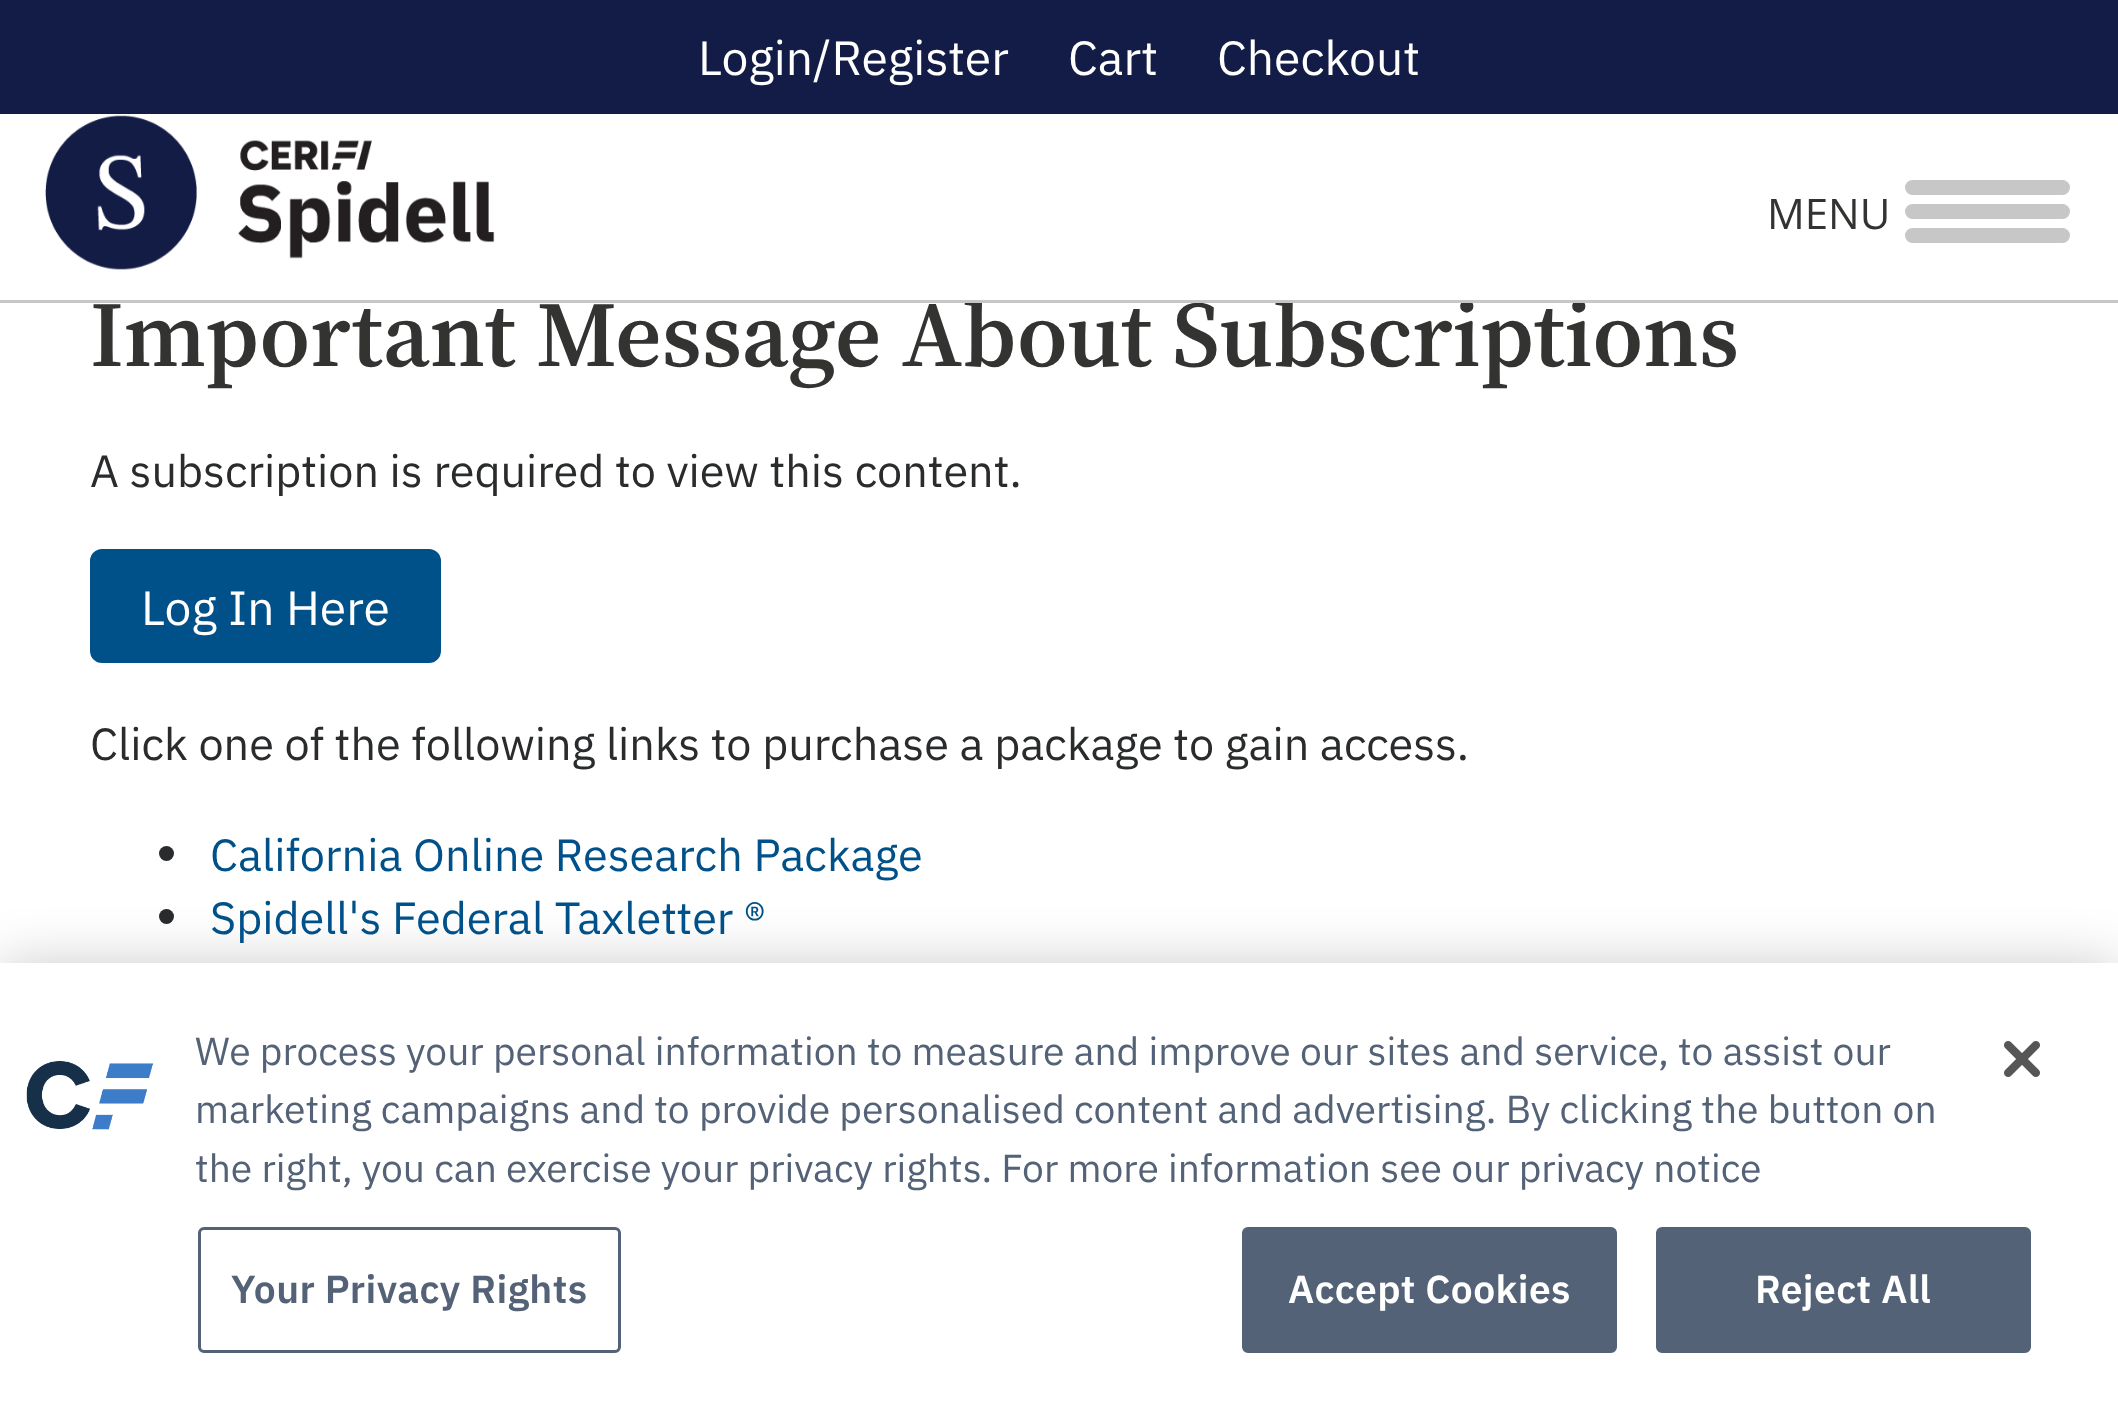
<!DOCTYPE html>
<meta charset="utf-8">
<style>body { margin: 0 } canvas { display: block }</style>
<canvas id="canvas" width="2118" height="1412"></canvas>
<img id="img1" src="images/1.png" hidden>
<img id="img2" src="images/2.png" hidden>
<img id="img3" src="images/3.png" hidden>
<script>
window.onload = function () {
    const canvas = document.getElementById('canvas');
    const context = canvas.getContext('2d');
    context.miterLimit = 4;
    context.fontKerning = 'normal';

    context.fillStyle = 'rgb(255, 255, 255)';
    context.fillRect(0, 0, 2118, 1412);
    context.fillStyle = 'rgb(18, 28, 70)';
    context.fillRect(0, 0, 2118, 114);
    context.drawImage(document.getElementById('img1'), 45, 115, 450, 155);
    context.fillStyle = 'rgb(199, 199, 199)';
    context.beginPath();
    context.roundRect(1905, 180, 165, 15, 7.5);
    context.fill();
    context.beginPath();
    context.roundRect(1905, 204, 165, 15, 7.5);
    context.fill();
    context.beginPath();
    context.roundRect(1905, 228, 165, 15, 7.5);
    context.fill();
    context.fillStyle = 'rgb(0, 81, 138)';
    context.beginPath();
    context.roundRect(91.5, 550.5, 348, 111, 10.5);
    context.fill();
    context.strokeStyle = 'rgb(0, 81, 138)';
    context.lineWidth = 3;
    context.stroke();
    context.fillStyle = 'rgb(41, 43, 44)';
    context.beginPath();
    context.arc(166.5, 853.5, 7.5, 0, 2 * Math.PI);
    context.fill();
    context.beginPath();
    context.arc(166.5, 916.5, 7.5, 0, 2 * Math.PI);
    context.fill();
    context.fillStyle = 'rgba(0, 0, 0, 0.2)';
    context.filter = 'blur(27px)';
    context.beginPath();
    context.rect(0, 963, 2118, 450);
    context.fill();
    context.filter = 'none';
    context.fillStyle = 'rgb(255, 255, 255)';
    context.fillRect(0, 963, 2118, 449);
    context.drawImage(document.getElementById('img2'), 26, 1061, 128, 69);
    context.beginPath();
    context.roundRect(199.5, 1228.5, 420, 123, 4.5);
    context.strokeStyle = 'rgb(84, 98, 119)';
    context.stroke();
    context.fillStyle = 'rgb(84, 98, 119)';
    context.beginPath();
    context.roundRect(1243.5, 1228.5, 372, 123, 4.5);
    context.fill();
    context.stroke();
    context.beginPath();
    context.roundRect(1657.5, 1228.5, 372, 123, 4.5);
    context.fill();
    context.stroke();
    context.drawImage(document.getElementById('img3'), 2004, 1041, 36, 36);
    context.font = '48px IBM Plex Sans';
    context.fillStyle = 'rgb(255, 255, 255)';
    context.fillText('Login/Register', 698, 75);
    context.fillText('Cart', 1068, 75);
    context.fillText('Checkout', 1217, 75);
    context.font = '42px Open Sans';
    context.fillStyle = 'rgb(51, 51, 50)';
    context.fillText('MENU', 1767, 229);
    context.font = '600 93px "Source Serif 4"';
    context.fillText('Important Message About Subscriptions', 90, 366);
    context.fillStyle = 'rgb(199, 199, 199)';
    context.fillRect(0, 300, 2118, 3);
    context.fillStyle = 'rgb(255, 255, 255)';
    context.fillRect(971, 297, 609, 3);
    context.font = '45px IBM Plex Sans';
    context.fillStyle = 'rgb(41, 43, 44)';
    context.fillText('A subscription is required to view this content.', 90, 487);
    context.font = '48px IBM Plex Sans';
    context.fillStyle = 'rgb(255, 255, 255)';
    context.fillText('Log In Here', 141, 625);
    context.font = '45px IBM Plex Sans';
    context.fillStyle = 'rgb(41, 43, 44)';
    context.fillText('Click one of the following links to purchase a package to gain access.', 90, 760);
    context.fillStyle = 'rgb(0, 81, 138)';
    context.fillText('California Online Research Package', 210, 871);
    context.fillText('Spidell\'s Federal Taxletter ®', 210, 934);
    context.font = '39px IBM Plex Sans';
    context.fillStyle = 'rgb(84, 98, 119)';
    context.fillText('We process your personal information to measure and improve our sites and service, to assist our', 195, 1065);
    context.fillText('marketing campaigns and to provide personalised content and advertising. By clicking the button on', 195, 1123);
    context.fillText('the right, you can exercise your privacy rights. For more information see our privacy notice', 195, 1182);
    context.letterSpacing = '0.4px';
    context.font = '600 39px IBM Plex Sans';
    context.fillText('Your Privacy Rights', 231, 1303);
    context.fillStyle = 'rgb(255, 255, 255)';
    context.fillText('Accept Cookies', 1288, 1303);
    context.fillText('Reject All', 1755, 1303);
};
</script>
